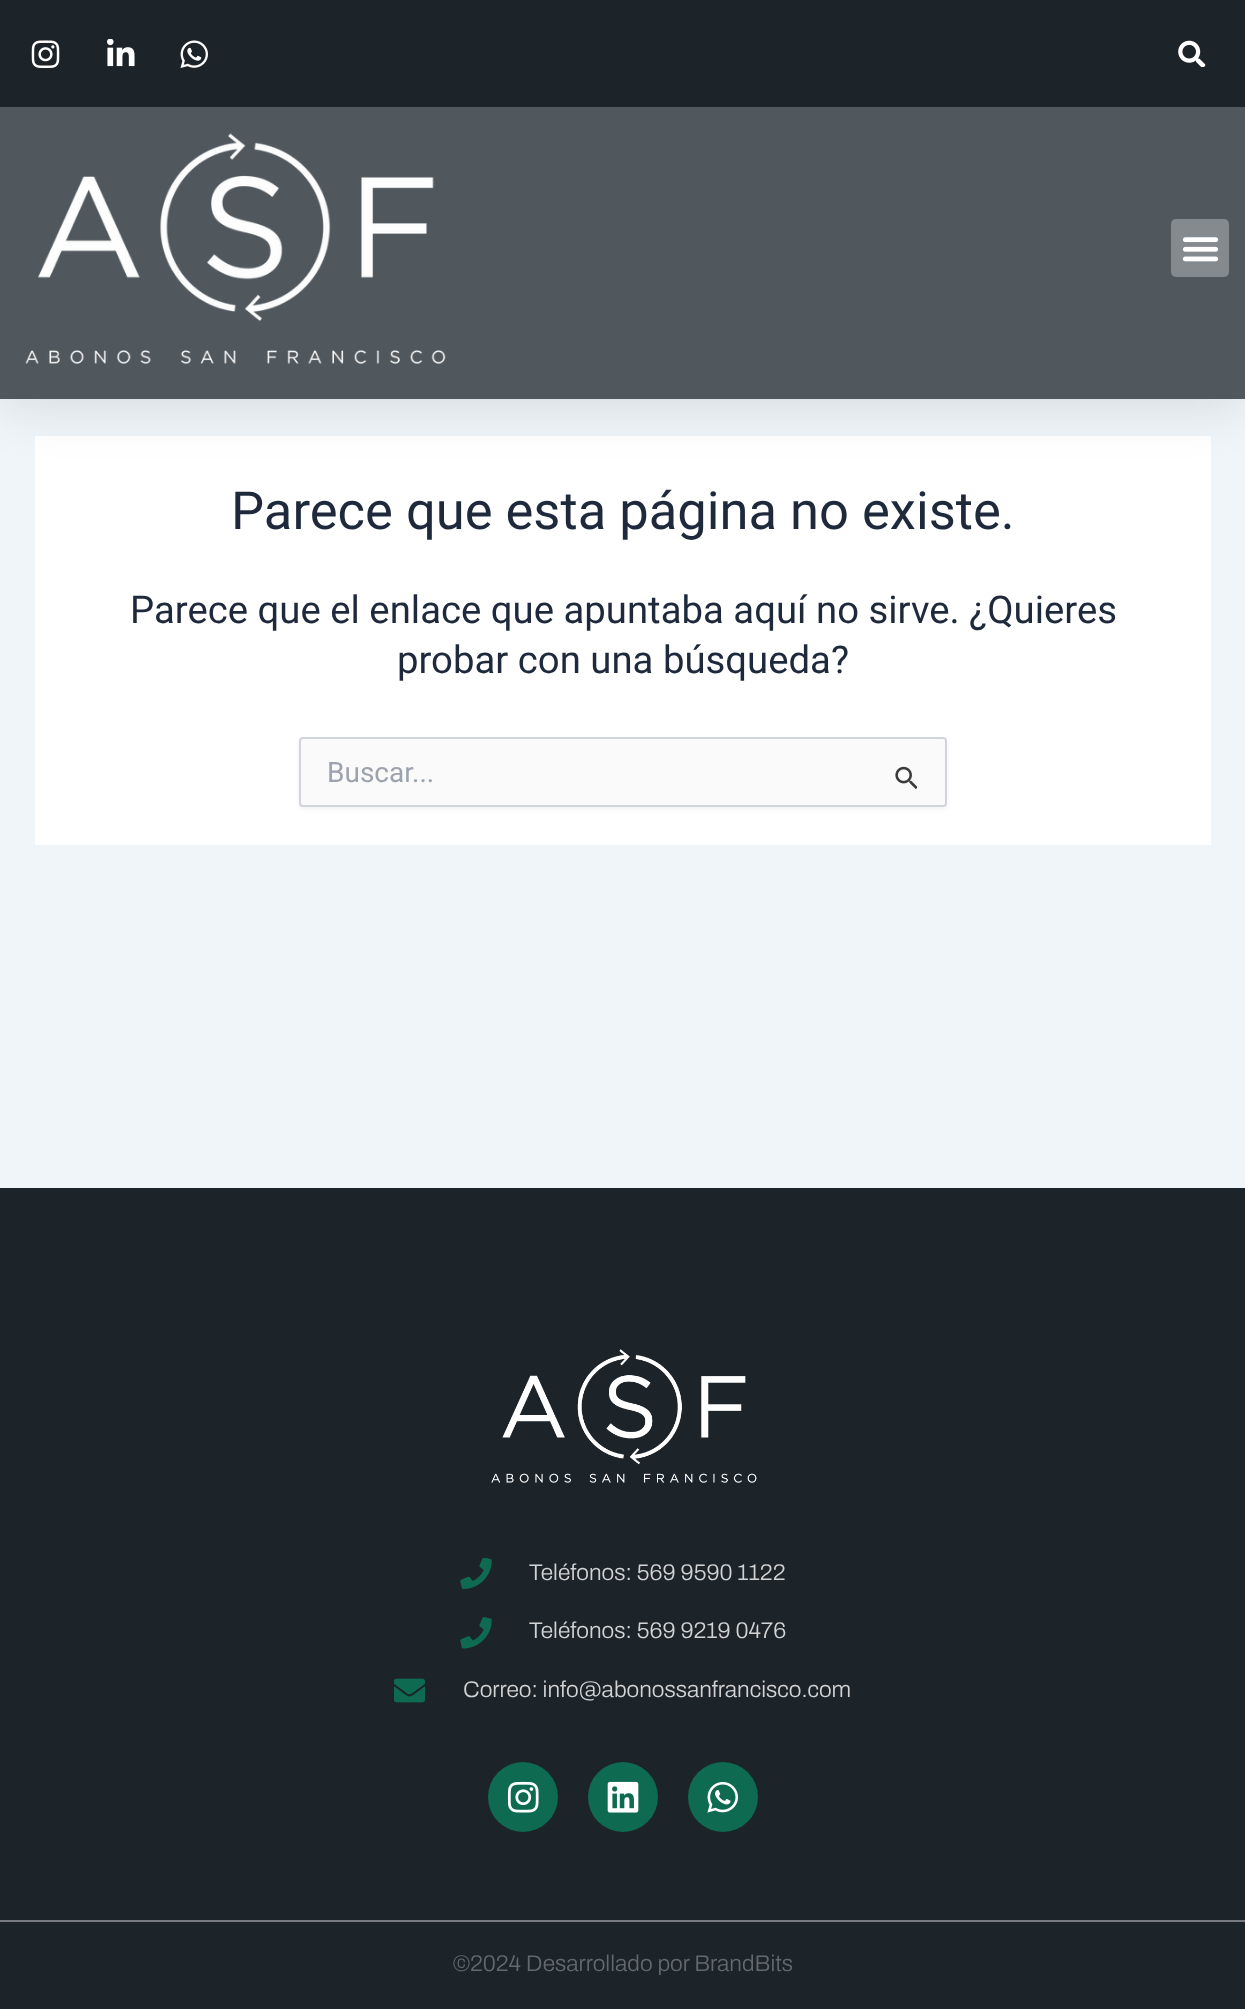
<!DOCTYPE html>
<meta charset="utf-8">
<style>body { margin: 0 } canvas { display: block }</style>
<canvas id="canvas" width="1245" height="2009"></canvas>
<img id="img1" src="images/1.png" hidden>
<img id="img2" src="images/2.png" hidden>
<img id="img3" src="images/3.png" hidden>
<img id="img4" src="images/4.png" hidden>
<img id="img5" src="images/5.png" hidden>
<img id="img6" src="images/6.png" hidden>
<img id="img7" src="images/7.png" hidden>
<img id="img8" src="images/8.png" hidden>
<img id="img9" src="images/9.png" hidden>
<img id="img10" src="images/10.png" hidden>
<img id="img11" src="images/11.png" hidden>
<img id="img12" src="images/12.png" hidden>
<img id="img13" src="images/13.png" hidden>
<img id="img14" src="images/14.png" hidden>
<script>
window.onload = function () {
    const canvas = document.getElementById('canvas');
    const context = canvas.getContext('2d');
    context.miterLimit = 4;
    context.fontKerning = 'normal';

    context.fillStyle = 'rgb(240, 245, 250)';
    context.fillRect(0, 0, 1245, 2009);
    context.fillStyle = 'rgb(255, 255, 255)';
    context.fillRect(35, 436, 1176, 409);
    context.fillStyle = 'rgba(0, 0, 0, 0.1)';
    context.filter = 'blur(26px)';
    context.beginPath();
    context.rect(0, 9, 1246, 399);
    context.fill();
    context.filter = 'none';
    context.fillStyle = 'rgb(28, 35, 41)';
    context.fillRect(0, 0, 1245, 107);
    context.drawImage(document.getElementById('img1'), 31, 40, 29, 28);
    context.drawImage(document.getElementById('img2'), 107, 39, 28, 28);
    context.drawImage(document.getElementById('img3'), 180, 40, 28, 28);
    context.drawImage(document.getElementById('img4'), 1178, 40, 28, 27);
    context.fillStyle = 'rgb(81, 88, 93)';
    context.fillRect(0, 107, 1245, 292);
    context.drawImage(document.getElementById('img5'), 25, 133, 421, 231);
    context.fillStyle = 'rgb(133, 138, 142)';
    context.beginPath();
    context.roundRect(1171, 219, 58, 58, 5);
    context.fill();
    context.drawImage(document.getElementById('img6'), 1182, 237, 37, 25);
    context.fillStyle = 'rgba(0, 0, 0, 0.05)';
    context.filter = 'blur(2px)';
    context.beginPath();
    context.roundRect(299, 739, 648, 70, 4);
    context.fill();
    context.filter = 'none';
    context.fillStyle = 'rgb(250, 250, 250)';
    context.beginPath();
    context.roundRect(300, 738, 646, 68, 3);
    context.fill();
    context.strokeStyle = 'rgb(209, 213, 219)';
    context.lineWidth = 2;
    context.stroke();
    context.drawImage(document.getElementById('img7'), 895, 766, 22, 23);
    context.fillStyle = 'rgb(28, 35, 41)';
    context.fillRect(0, 1188, 1245, 732);
    context.drawImage(document.getElementById('img8'), 491, 1349, 266, 134);
    context.drawImage(document.getElementById('img9'), 460, 1558, 32, 31);
    context.drawImage(document.getElementById('img10'), 460, 1617, 32, 32);
    context.drawImage(document.getElementById('img11'), 394, 1678, 31, 25);
    context.fillStyle = 'rgb(14, 107, 81)';
    context.beginPath();
    context.arc(523, 1797, 35, 0, 2 * Math.PI);
    context.fill();
    context.drawImage(document.getElementById('img12'), 507, 1781, 32, 32);
    context.beginPath();
    context.arc(623, 1797, 35, 0, 2 * Math.PI);
    context.fill();
    context.drawImage(document.getElementById('img13'), 607, 1781, 32, 32);
    context.beginPath();
    context.arc(723, 1797, 35, 0, 2 * Math.PI);
    context.fill();
    context.drawImage(document.getElementById('img14'), 707, 1781, 32, 32);
    context.fillStyle = 'rgb(28, 35, 41)';
    context.fillRect(0, 1922, 1245, 87);
    context.fillStyle = 'rgb(119, 123, 127)';
    context.fillRect(0, 1920, 1245, 2);
    context.font = '52.5px Roboto';
    context.fillStyle = 'rgb(30, 41, 59)';
    context.fillText('Parece que esta página no existe.', 231, 529);
    context.font = '38.3px Roboto';
    context.fillText('Parece que el enlace que apuntaba aquí no sirve. ¿Quieres', 130, 623);
    context.fillText('probar con una búsqueda?', 397, 673);
    context.font = '28px Roboto';
    context.fillStyle = 'rgb(156, 163, 175)';
    context.fillText('Buscar...', 327, 782);
    context.font = '300 22.75px Archivo';
    context.fillStyle = 'rgb(210, 211, 212)';
    context.fillText('Teléfonos: 569 9590 1122', 529, 1580);
    context.fillText('Teléfonos: 569 9219 0476', 529, 1638);
    context.fillText('Correo: info@abonossanfrancisco.com', 463, 1697);
    context.fillStyle = 'rgb(101, 105, 109)';
    context.fillText('©2024 Desarrollado por BrandBits', 453, 1971);
};
</script>
